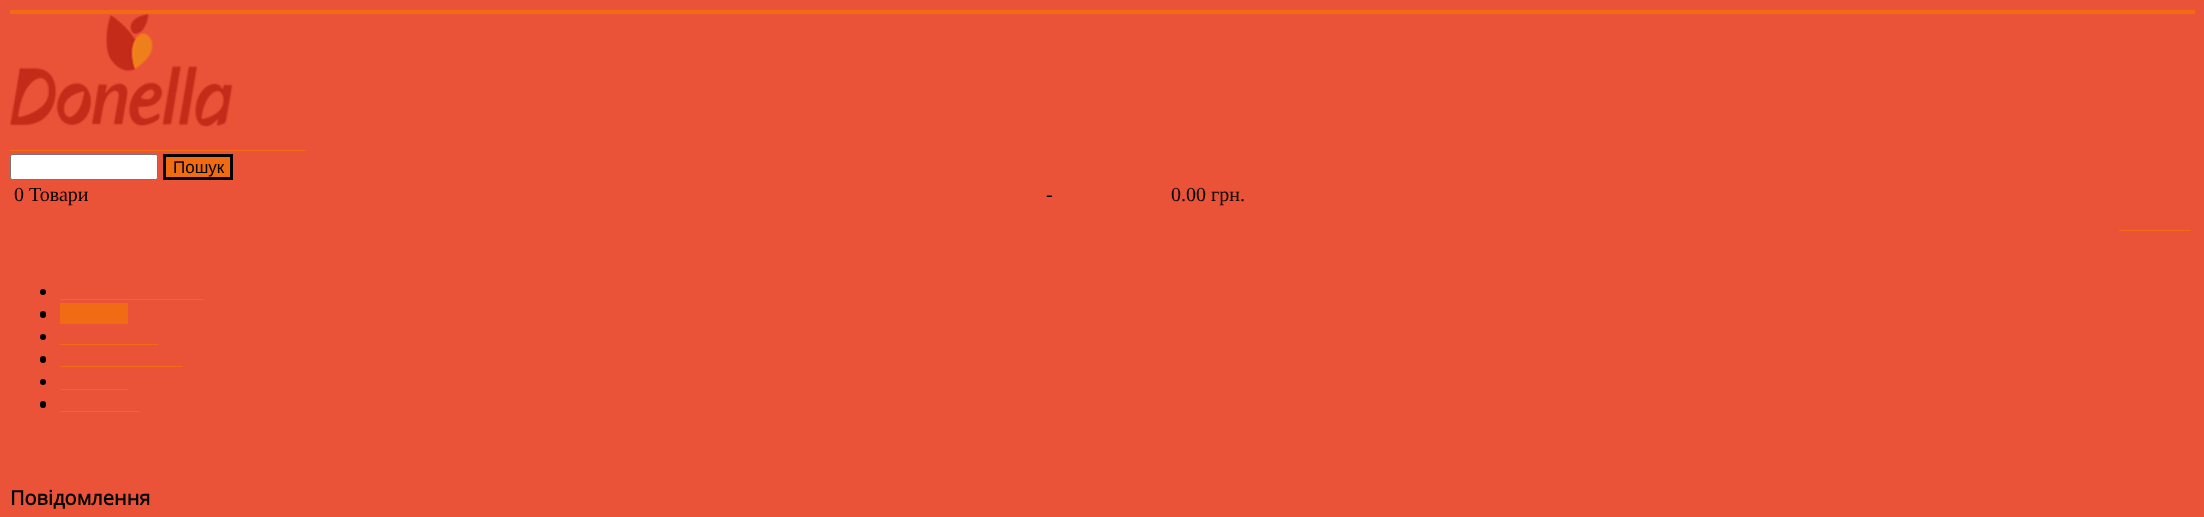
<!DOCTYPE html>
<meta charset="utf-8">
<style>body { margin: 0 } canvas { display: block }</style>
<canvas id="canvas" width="2204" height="517"></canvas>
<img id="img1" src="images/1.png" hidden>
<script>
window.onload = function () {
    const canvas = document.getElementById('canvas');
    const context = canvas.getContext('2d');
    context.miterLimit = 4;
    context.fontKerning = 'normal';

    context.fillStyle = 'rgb(235, 83, 56)';
    context.fillRect(0, 0, 2204, 517);
    context.fillStyle = 'rgb(240, 107, 19)';
    context.fillRect(10, 10, 2185, 4);
    context.drawImage(document.getElementById('img1'), 10, 13, 223, 114);
    context.fillRect(10, 150, 296, 1);
    context.fillStyle = 'rgb(255, 255, 255)';
    context.beginPath();
    context.roundRect(10.5, 154.5, 147, 25, 2);
    context.fill();
    context.strokeStyle = 'rgb(118, 118, 118)';
    context.stroke();
    context.fillStyle = 'rgb(240, 107, 19)';
    context.beginPath();
    context.rect(164.5, 155.5, 67, 23);
    context.fill();
    context.strokeStyle = 'rgb(0, 0, 0)';
    context.lineWidth = 3;
    context.stroke();
    context.fillRect(2119, 230, 72, 1);
    context.fillStyle = 'rgb(0, 0, 0)';
    context.beginPath();
    context.arc(43, 292, 3, 0, 2 * Math.PI);
    context.fill();
    context.fillStyle = 'rgb(240, 107, 19)';
    context.fillRect(60, 299, 144, 1);
    context.fillStyle = 'rgb(0, 0, 0)';
    context.beginPath();
    context.roundRect(40, 311, 6, 7, 3);
    context.fill();
    context.fillStyle = 'rgb(240, 107, 19)';
    context.fillRect(60, 303, 68, 21);
    context.fillStyle = 'rgb(0, 0, 0)';
    context.beginPath();
    context.arc(43, 337, 3, 0, 2 * Math.PI);
    context.fill();
    context.fillStyle = 'rgb(240, 107, 19)';
    context.fillRect(60, 344, 98, 1);
    context.fillStyle = 'rgb(0, 0, 0)';
    context.beginPath();
    context.roundRect(40, 356, 6, 7, 3);
    context.fill();
    context.fillStyle = 'rgb(240, 107, 19)';
    context.fillRect(60, 366, 123, 1);
    context.fillStyle = 'rgb(0, 0, 0)';
    context.beginPath();
    context.arc(43, 382, 3, 0, 2 * Math.PI);
    context.fill();
    context.fillStyle = 'rgb(240, 107, 19)';
    context.fillRect(60, 389, 68, 1);
    context.fillStyle = 'rgb(0, 0, 0)';
    context.beginPath();
    context.roundRect(40, 401, 6, 7, 3);
    context.fill();
    context.fillStyle = 'rgb(240, 107, 19)';
    context.fillRect(60, 411, 80, 1);
    context.font = '17px Liberation Sans';
    context.fillStyle = 'rgb(0, 0, 0)';
    context.fillText('Пошук', 173, 173);
    context.font = '20px Liberation Serif';
    context.fillText('0 Товари', 14, 201);
    context.fillText('-', 1046, 201);
    context.fillText('0.00 грн.', 1171, 201);
    context.font = 'bold 20px Open Sans';
    context.fillText('Повідомлення', 10, 505);
};
</script>
